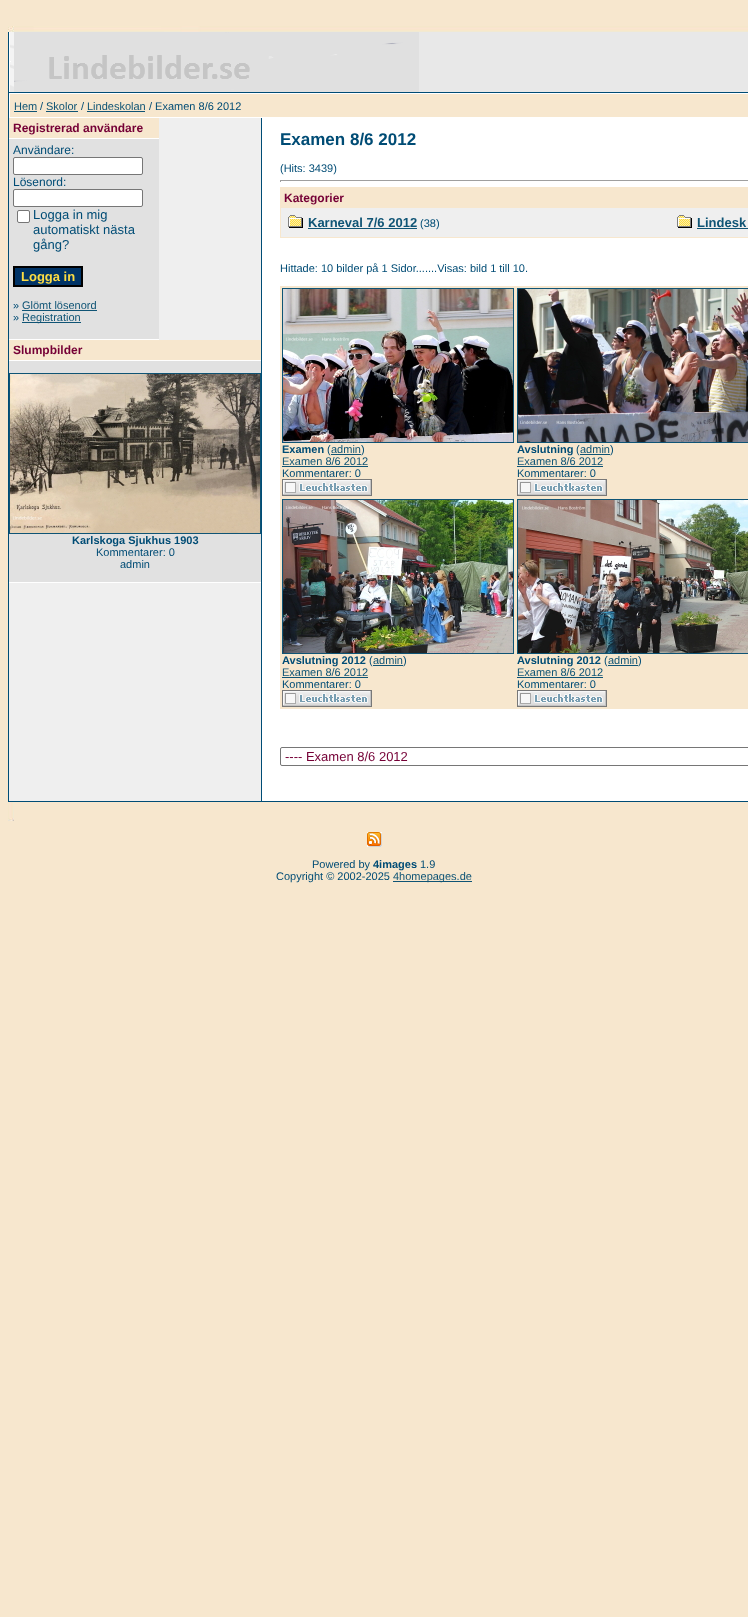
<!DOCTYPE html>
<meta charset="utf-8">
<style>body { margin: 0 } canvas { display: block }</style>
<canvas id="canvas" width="748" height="1617"></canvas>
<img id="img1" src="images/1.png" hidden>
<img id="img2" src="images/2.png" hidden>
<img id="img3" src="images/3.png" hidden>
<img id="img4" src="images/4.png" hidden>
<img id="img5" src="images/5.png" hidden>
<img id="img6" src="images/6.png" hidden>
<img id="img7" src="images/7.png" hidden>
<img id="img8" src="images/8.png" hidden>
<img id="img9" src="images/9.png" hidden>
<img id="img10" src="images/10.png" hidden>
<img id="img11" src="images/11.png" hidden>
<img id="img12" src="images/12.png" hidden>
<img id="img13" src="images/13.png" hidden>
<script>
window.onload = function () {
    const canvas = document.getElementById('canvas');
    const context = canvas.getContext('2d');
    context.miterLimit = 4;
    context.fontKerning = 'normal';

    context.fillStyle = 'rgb(247, 231, 206)';
    context.fillRect(0, 0, 748, 1617);
    context.fillStyle = 'rgb(232, 232, 232)';
    context.fillRect(269, 32, 479, 60);
    context.drawImage(document.getElementById('img1'), 8, 26, 6, 6);
    context.drawImage(document.getElementById('img2'), 14, 26, 734, 6);
    context.drawImage(document.getElementById('img3'), 8, 32, 6, 60);
    context.drawImage(document.getElementById('img4'), 14, 32, 405, 60);
    context.fillStyle = 'rgb(0, 76, 117)';
    context.fillRect(8, 92, 740, 710);
    context.fillStyle = 'rgb(255, 255, 255)';
    context.fillRect(9, 93, 739, 708);
    context.fillStyle = 'rgb(247, 231, 206)';
    context.fillRect(10, 94, 738, 23);
    context.fillStyle = 'rgb(15, 84, 117)';
    context.fillRect(14, 111, 23, 1);
    context.fillRect(46, 111, 32, 1);
    context.fillRect(87, 111, 58, 1);
    context.fillStyle = 'rgb(239, 239, 239)';
    context.fillRect(9, 118, 252, 683);
    context.fillStyle = 'rgb(247, 231, 206)';
    context.fillRect(9, 118, 150, 20);
    context.fillStyle = 'rgb(255, 255, 255)';
    context.fillRect(9, 138, 150, 1);
    context.fillStyle = 'rgb(225, 225, 225)';
    context.fillRect(9, 139, 150, 200);
    context.fillStyle = 'rgb(255, 255, 255)';
    context.beginPath();
    context.roundRect(13.5, 157.5, 129, 17, 1.5);
    context.fill();
    context.strokeStyle = 'rgb(118, 118, 118)';
    context.stroke();
    context.beginPath();
    context.roundRect(13.5, 189.5, 129, 17, 1.5);
    context.fill();
    context.stroke();
    context.beginPath();
    context.roundRect(17.5, 210.5, 12, 12, 1.5);
    context.fill();
    context.stroke();
    context.fillStyle = 'rgb(0, 51, 102)';
    context.beginPath();
    context.rect(14, 267, 68, 19);
    context.fill();
    context.strokeStyle = 'rgb(0, 0, 0)';
    context.lineWidth = 2;
    context.stroke();
    context.fillStyle = 'rgb(15, 84, 117)';
    context.fillRect(22, 310, 75, 1);
    context.fillRect(22, 322, 59, 1);
    context.fillStyle = 'rgb(255, 255, 255)';
    context.fillRect(9, 339, 150, 1);
    context.fillStyle = 'rgb(247, 231, 206)';
    context.fillRect(9, 340, 252, 20);
    context.fillStyle = 'rgb(255, 255, 255)';
    context.fillRect(9, 360, 252, 1);
    context.fillStyle = 'rgb(225, 225, 225)';
    context.fillRect(9, 361, 252, 221);
    context.strokeStyle = 'rgb(15, 84, 117)';
    context.lineWidth = 1;
    context.strokeRect(9.5, 373.5, 251, 160);
    context.drawImage(document.getElementById('img5'), 10, 374, 250, 159);
    context.fillStyle = 'rgb(255, 255, 255)';
    context.fillRect(9, 582, 252, 1);
    context.fillStyle = 'rgb(0, 76, 117)';
    context.fillRect(261, 118, 1, 683);
    context.fillStyle = 'rgb(159, 159, 159)';
    context.fillRect(280, 180, 468, 1);
    context.fillRect(280, 180, 1, 2);
    context.fillStyle = 'rgb(247, 231, 206)';
    context.fillRect(280, 187, 468, 51);
    context.fillStyle = 'rgb(239, 239, 239)';
    context.fillRect(281, 208, 467, 29);
    context.drawImage(document.getElementById('img6'), 288, 215, 15, 13);
    context.fillStyle = 'rgb(15, 84, 117)';
    context.fillRect(308, 228, 109, 1);
    context.drawImage(document.getElementById('img6'), 677, 215, 15, 13);
    context.fillRect(697, 228, 51, 1);
    context.fillStyle = 'rgb(247, 231, 206)';
    context.fillRect(280, 286, 468, 423);
    context.strokeRect(282.5, 288.5, 231, 154);
    context.drawImage(document.getElementById('img7'), 283, 289, 230, 153);
    context.fillStyle = 'rgb(15, 84, 117)';
    context.fillRect(331, 454, 30, 1);
    context.fillRect(282, 466, 86, 1);
    context.drawImage(document.getElementById('img8'), 282, 479, 90, 17);
    context.strokeRect(517.5, 288.5, 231, 154);
    context.drawImage(document.getElementById('img9'), 518, 289, 230, 153);
    context.fillRect(517, 466, 86, 1);
    context.drawImage(document.getElementById('img8'), 517, 479, 90, 17);
    context.strokeRect(282.5, 499.5, 231, 154);
    context.drawImage(document.getElementById('img10'), 283, 500, 230, 153);
    context.fillRect(373, 665, 30, 1);
    context.fillRect(282, 677, 86, 1);
    context.drawImage(document.getElementById('img8'), 282, 690, 90, 17);
    context.strokeRect(517.5, 499.5, 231, 154);
    context.drawImage(document.getElementById('img11'), 518, 500, 230, 153);
    context.fillRect(608, 665, 30, 1);
    context.fillRect(517, 677, 86, 1);
    context.drawImage(document.getElementById('img8'), 517, 690, 90, 17);
    context.beginPath();
    context.roundRect(280.5, 747.5, 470, 18, 1.5);
    context.strokeStyle = 'rgb(118, 118, 118)';
    context.stroke();
    context.drawImage(document.getElementById('img12'), 8, 802, 6, 19);
    context.drawImage(document.getElementById('img13'), 367, 832, 15, 15);
    context.fillRect(393, 881, 79, 1);
    context.font = '11px Liberation Sans';
    context.fillText('Hem', 14, 110);
    context.fillStyle = 'rgb(0, 76, 117)';
    context.fillText('/', 40, 110);
    context.fillStyle = 'rgb(15, 84, 117)';
    context.fillText('Skolor', 46, 110);
    context.fillStyle = 'rgb(0, 76, 117)';
    context.fillText('/', 81, 110);
    context.fillStyle = 'rgb(15, 84, 117)';
    context.fillText('Lindeskolan', 87, 110);
    context.fillStyle = 'rgb(0, 76, 117)';
    context.fillText('/ Examen 8/6 2012', 149, 110);
    context.font = 'bold 12px Liberation Sans';
    context.fillStyle = 'rgb(117, 0, 54)';
    context.fillText('Registrerad användare', 13, 132);
    context.font = '12px Liberation Sans';
    context.fillStyle = 'rgb(0, 76, 117)';
    context.fillText('Användare:', 13, 154);
    context.fillText('Lösenord:', 13, 186);
    context.font = '13px Liberation Sans';
    context.fillText('Logga in mig', 33, 219);
    context.fillText('automatiskt nästa', 33, 234);
    context.fillText('gång?', 33, 249);
    context.font = 'bold 13px Liberation Sans';
    context.fillStyle = 'rgb(252, 220, 67)';
    context.fillText('Logga in', 21, 281);
    context.font = '11px Liberation Sans';
    context.fillStyle = 'rgb(0, 76, 117)';
    context.fillText('»', 13, 309);
    context.fillStyle = 'rgb(15, 84, 117)';
    context.fillText('Glömt lösenord', 22, 309);
    context.fillStyle = 'rgb(0, 76, 117)';
    context.fillText('»', 13, 321);
    context.fillStyle = 'rgb(15, 84, 117)';
    context.fillText('Registration', 22, 321);
    context.font = 'bold 12px Liberation Sans';
    context.fillStyle = 'rgb(117, 0, 54)';
    context.fillText('Slumpbilder', 13, 354);
    context.font = 'bold 11px Liberation Sans';
    context.fillStyle = 'rgb(0, 76, 117)';
    context.fillText('Karlskoga Sjukhus 1903', 72, 544);
    context.font = '11px Liberation Sans';
    context.fillText('Kommentarer: 0', 96, 556);
    context.fillText('admin', 120, 568);
    context.font = 'bold 17px Liberation Sans';
    context.fillText('Examen 8/6 2012', 280, 145);
    context.font = '11px Liberation Sans';
    context.fillText('(Hits: 3439)', 280, 172);
    context.font = 'bold 12px Liberation Sans';
    context.fillStyle = 'rgb(117, 0, 54)';
    context.fillText('Kategorier', 284, 202);
    context.font = 'bold 13px Liberation Sans';
    context.fillStyle = 'rgb(15, 84, 117)';
    context.fillText('Karneval 7/6 2012', 308, 227);
    context.font = '11px Liberation Sans';
    context.fillStyle = 'rgb(0, 76, 117)';
    context.fillText('(38)', 420, 227);
    context.font = 'bold 13px Liberation Sans';
    context.fillStyle = 'rgb(15, 84, 117)';
    context.fillText('Lindesk', 697, 227);
    context.font = '11px Liberation Sans';
    context.fillStyle = 'rgb(0, 76, 117)';
    context.fillText('Hittade: 10 bilder på 1 Sidor.......Visas: bild 1 till 10.', 280, 272);
    context.font = 'bold 11px Liberation Sans';
    context.fillText('Examen', 282, 453);
    context.font = '11px Liberation Sans';
    context.fillText('(', 327, 453);
    context.fillStyle = 'rgb(15, 84, 117)';
    context.fillText('admin', 331, 453);
    context.fillStyle = 'rgb(0, 76, 117)';
    context.fillText(')', 361, 453);
    context.fillStyle = 'rgb(15, 84, 117)';
    context.fillText('Examen 8/6 2012', 282, 465);
    context.fillStyle = 'rgb(0, 76, 117)';
    context.fillText('Kommentarer: 0', 282, 477);
    context.font = 'bold 11px Liberation Sans';
    context.fillText('Avslutning', 517, 453);
    context.font = '11px Liberation Sans';
    context.fillText('(', 576, 453);
    context.fillStyle = 'rgb(15, 84, 117)';
    context.fillText('admin', 580, 453);
    context.fillRect(580, 454, 30, 1);
    context.fillStyle = 'rgb(0, 76, 117)';
    context.fillText(')', 610, 453);
    context.fillStyle = 'rgb(15, 84, 117)';
    context.fillText('Examen 8/6 2012', 517, 465);
    context.fillStyle = 'rgb(0, 76, 117)';
    context.fillText('Kommentarer: 0', 517, 477);
    context.font = 'bold 11px Liberation Sans';
    context.fillText('Avslutning 2012', 282, 664);
    context.font = '11px Liberation Sans';
    context.fillText('(', 369, 664);
    context.fillStyle = 'rgb(15, 84, 117)';
    context.fillText('admin', 373, 664);
    context.fillStyle = 'rgb(0, 76, 117)';
    context.fillText(')', 403, 664);
    context.fillStyle = 'rgb(15, 84, 117)';
    context.fillText('Examen 8/6 2012', 282, 676);
    context.fillStyle = 'rgb(0, 76, 117)';
    context.fillText('Kommentarer: 0', 282, 688);
    context.font = 'bold 11px Liberation Sans';
    context.fillText('Avslutning 2012', 517, 664);
    context.font = '11px Liberation Sans';
    context.fillText('(', 604, 664);
    context.fillStyle = 'rgb(15, 84, 117)';
    context.fillText('admin', 608, 664);
    context.fillStyle = 'rgb(0, 76, 117)';
    context.fillText(')', 638, 664);
    context.fillStyle = 'rgb(15, 84, 117)';
    context.fillText('Examen 8/6 2012', 517, 676);
    context.fillStyle = 'rgb(0, 76, 117)';
    context.fillText('Kommentarer: 0', 517, 688);
    context.font = '13px Liberation Sans';
    context.fillStyle = 'rgb(117, 0, 54)';
    context.fillText('---- Examen 8/6 2012', 285, 761);
    context.font = '11px Liberation Sans';
    context.fillStyle = 'rgb(0, 76, 117)';
    context.fillText('Powered by', 312, 868);
    context.font = 'bold 11px Liberation Sans';
    context.fillText('4images', 373, 868);
    context.font = '11px Liberation Sans';
    context.fillText('1.9', 420, 868);
    context.fillText('Copyright © 2002-2025', 276, 880);
    context.fillStyle = 'rgb(15, 84, 117)';
    context.fillText('4homepages.de', 393, 880);
};
</script>
